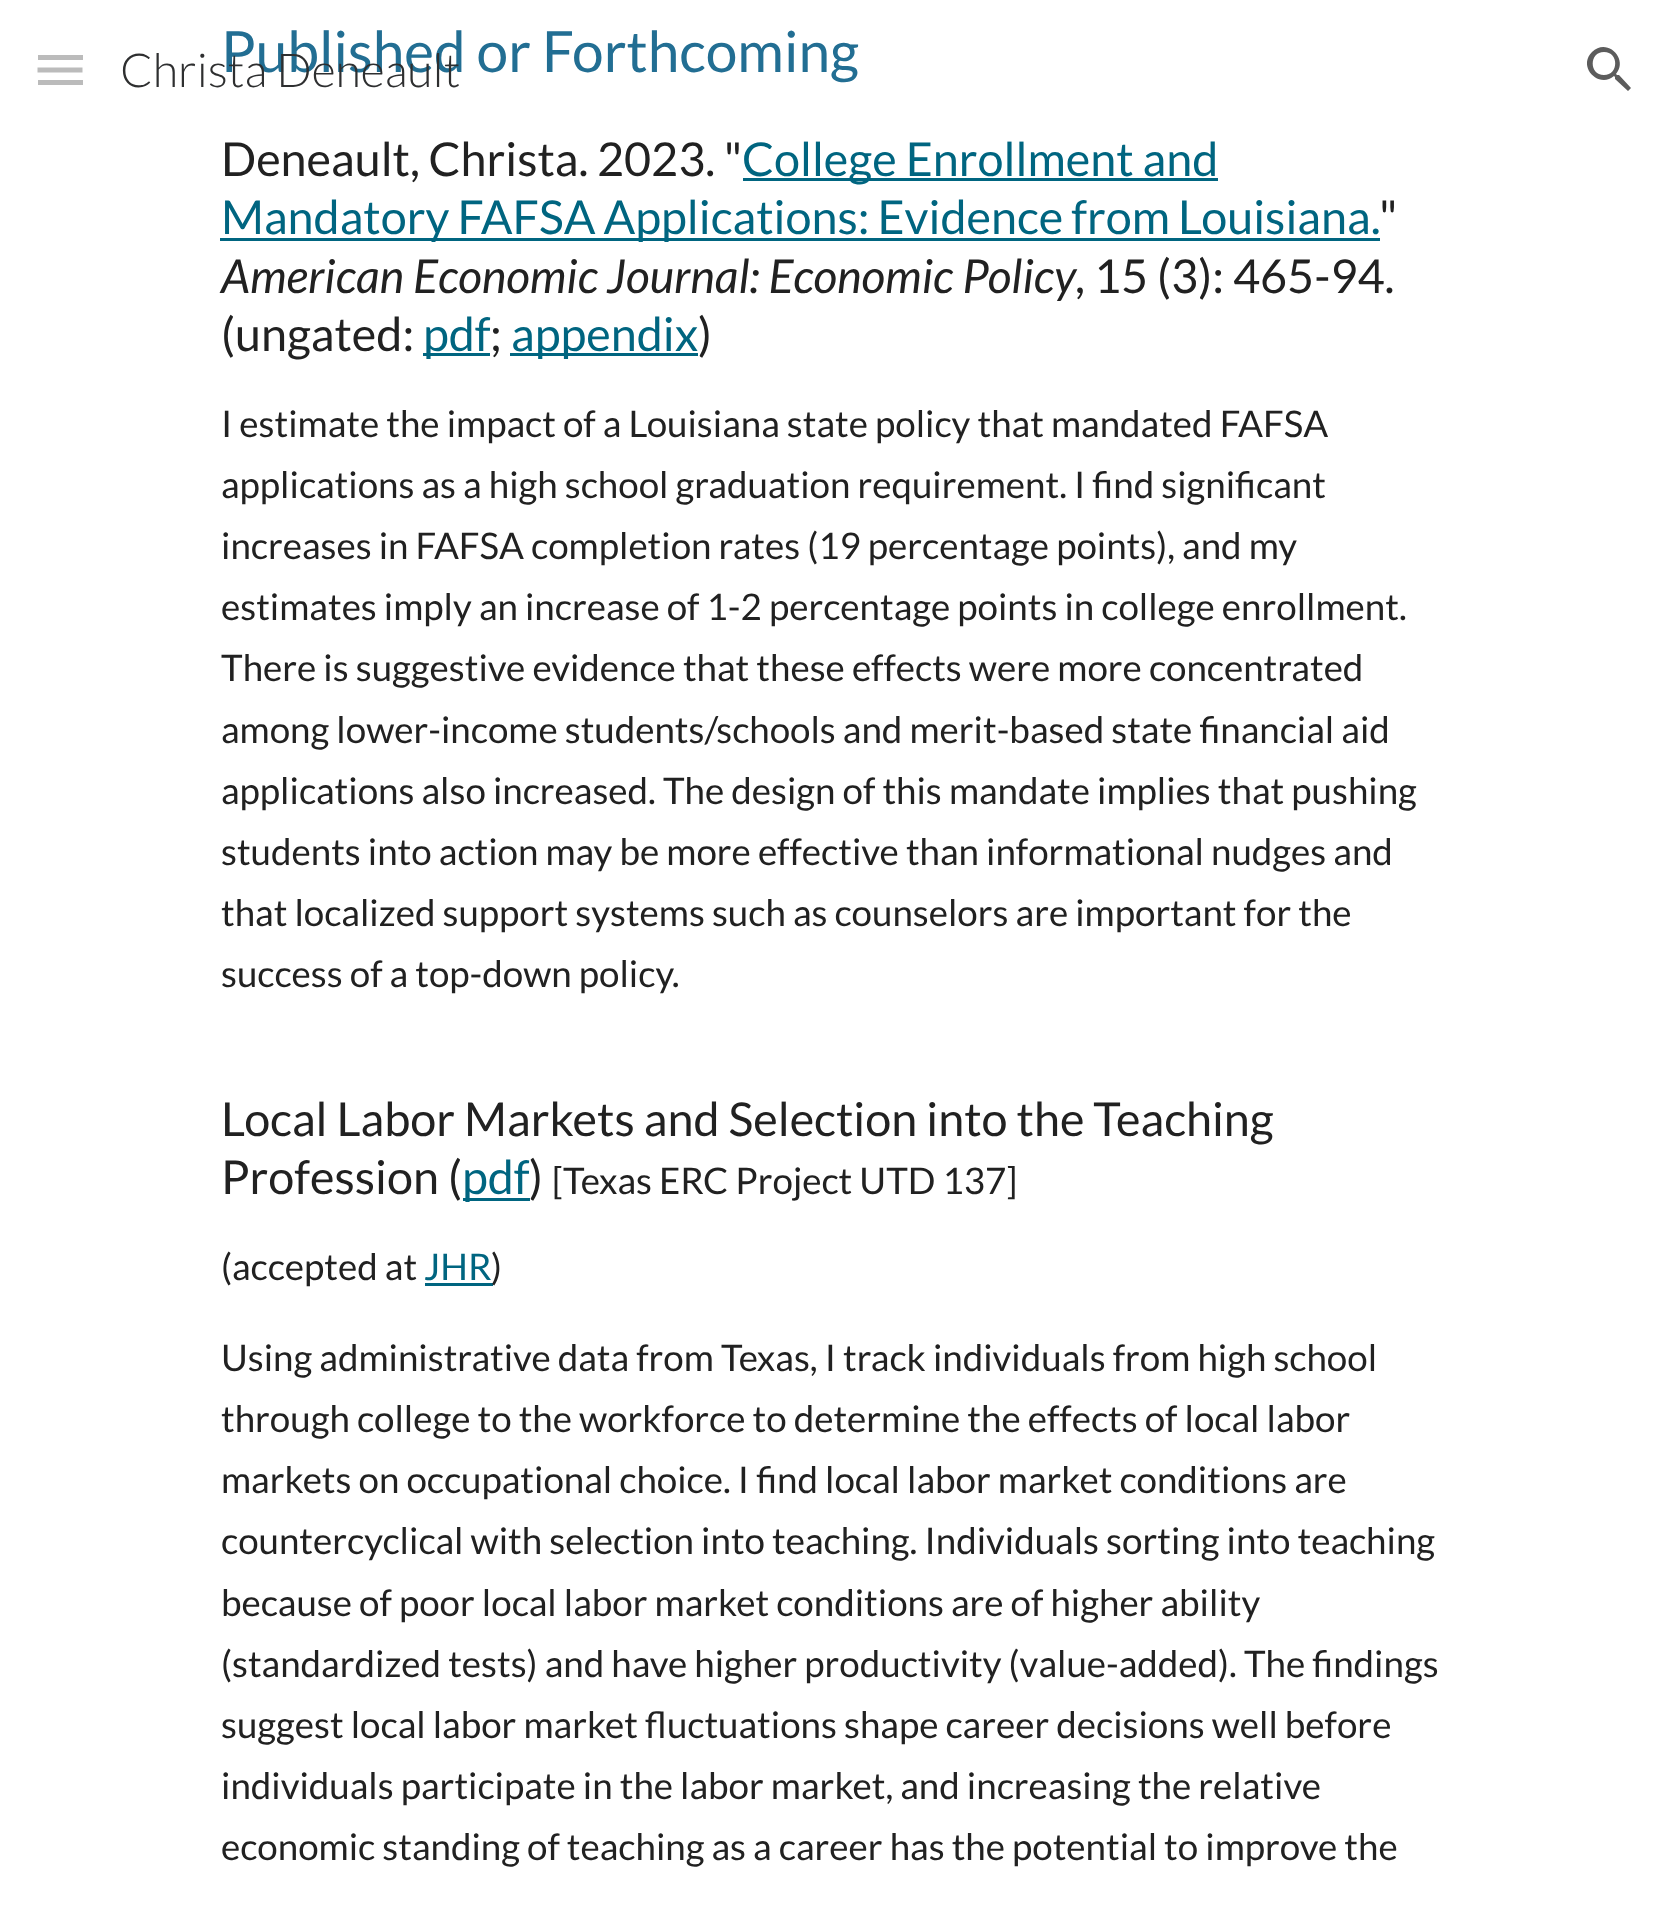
<!DOCTYPE html>
<meta charset="utf-8">
<style>body { margin: 0 } canvas { display: block }</style>
<canvas id="canvas" width="1670" height="1905"></canvas>
<script>
window.onload = function () {
    const canvas = document.getElementById('canvas');
    const context = canvas.getContext('2d');
    context.miterLimit = 4;
    context.fontKerning = 'normal';

    context.fillStyle = 'rgb(255, 255, 255)';
    context.fillRect(0, 0, 1670, 1905);
    context.fillStyle = 'rgb(0, 101, 128)';
    context.fillRect(743, 178, 475, 3);
    context.fillRect(220, 238, 1160, 3);
    context.fillRect(423, 353, 67, 3);
    context.fillRect(510, 353, 188, 3);
    context.fillRect(463, 1198, 67, 3);
    context.fillRect(425, 1283, 68, 3);
    context.fillStyle = 'rgb(187, 187, 187)';
    context.fillRect(38, 55, 45, 5);
    context.beginPath();
    context.moveTo(37.5, 70);
    context.lineTo(82.5, 70);
    context.strokeStyle = 'rgb(187, 187, 187)';
    context.lineWidth = 5;
    context.stroke();
    context.fillRect(38, 80, 45, 5);
    context.fillStyle = 'rgb(92, 92, 92)';
    context.beginPath();
    context.moveTo(1619, 75);
    context.lineTo(1617, 75);
    context.lineTo(1616, 74);
    context.bezierCurveTo(1629, 59, 1607, 37, 1592, 52);
    context.bezierCurveTo(1577, 67, 1599, 89, 1614, 76);
    context.lineTo(1615, 77);
    context.lineTo(1615, 79);
    context.lineTo(1628, 91);
    context.lineTo(1631, 88);
    context.closePath();
    context.moveTo(1604, 75);
    context.bezierCurveTo(1589, 75, 1589, 52, 1604, 52);
    context.bezierCurveTo(1619, 52, 1619, 75, 1604, 75);
    context.closePath();
    context.fill();
    context.font = '56.75px Lato';
    context.fillStyle = 'rgb(34, 110, 147)';
    context.fillText('Published or Forthcoming', 221, 72);
    context.wordSpacing = '-0.5px';
    context.font = '46.7px Lato';
    context.fillStyle = 'rgb(33, 33, 33)';
    context.fillText('Deneault, Christa. 2023. "', 221, 176);
    context.wordSpacing = '0px';
    context.fillStyle = 'rgb(0, 101, 128)';
    context.fillText('College Enrollment and', 742, 176);
    context.wordSpacing = '-1px';
    context.fillText('Mandatory FAFSA Applications: Evidence from Louisiana.', 221, 234);
    context.wordSpacing = '0px';
    context.fillStyle = 'rgb(33, 33, 33)';
    context.fillText('"', 1379, 234);
    context.font = 'italic 46.7px Lato';
    context.fillText('American Economic Journal: Economic Policy', 221, 293);
    context.font = '46.7px Lato';
    context.fillText(', 15 (3): 465-94.', 1075, 293);
    context.fillText('(ungated:', 221, 351);
    context.fillStyle = 'rgb(0, 101, 128)';
    context.fillText('pdf', 423, 351);
    context.fillStyle = 'rgb(33, 33, 33)';
    context.fillText(';', 490, 351);
    context.fillStyle = 'rgb(0, 101, 128)';
    context.fillText('appendix', 511, 351);
    context.fillStyle = 'rgb(33, 33, 33)';
    context.fillText(')', 698, 351);
    context.font = '36.7px Lato';
    context.fillText('I estimate the impact of a Louisiana state policy that mandated FAFSA', 221, 437);
    context.fillText('applications as a high school graduation requirement. I find significant', 221, 498);
    context.fillText('increases in FAFSA completion rates (19 percentage points), and my', 221, 559);
    context.fillText('estimates imply an increase of 1-2 percentage points in college enrollment.', 221, 620);
    context.fillText('There is suggestive evidence that these effects were more concentrated', 221, 681);
    context.fillText('among lower-income students/schools and merit-based state financial aid', 221, 743);
    context.fillText('applications also increased. The design of this mandate implies that pushing', 221, 804);
    context.fillText('students into action may be more effective than informational nudges and', 221, 865);
    context.fillText('that localized support systems such as counselors are important for the', 221, 926);
    context.fillText('success of a top-down policy.', 221, 987);
    context.font = '46.7px Lato';
    context.fillText('Local Labor Markets and Selection into the Teaching', 221, 1136);
    context.fillText('Profession (', 221, 1194);
    context.fillStyle = 'rgb(0, 101, 128)';
    context.fillText('pdf', 462, 1194);
    context.fillStyle = 'rgb(33, 33, 33)';
    context.fillText(')', 529, 1194);
    context.font = '36.7px Lato';
    context.fillText('[Texas ERC Project UTD 137]', 552, 1194);
    context.fillText('(accepted at', 221, 1280);
    context.fillStyle = 'rgb(0, 101, 128)';
    context.fillText('JHR', 424, 1280);
    context.fillStyle = 'rgb(33, 33, 33)';
    context.fillText(')', 491, 1280);
    context.fillText('Using administrative data from Texas, I track individuals from high school', 221, 1371);
    context.fillText('through college to the workforce to determine the effects of local labor', 221, 1432);
    context.fillText('markets on occupational choice. I find local labor market conditions are', 221, 1493);
    context.fillText('countercyclical with selection into teaching. Individuals sorting into teaching', 221, 1554);
    context.fillText('because of poor local labor market conditions are of higher ability', 221, 1616);
    context.fillText('(standardized tests) and have higher productivity (value-added). The findings', 221, 1677);
    context.fillText('suggest local labor market fluctuations shape career decisions well before', 221, 1738);
    context.fillText('individuals participate in the labor market, and increasing the relative', 221, 1799);
    context.fillText('economic standing of teaching as a career has the potential to improve the', 221, 1860);
    context.font = '300 46.7px Lato';
    context.fillStyle = 'rgb(46, 47, 48)';
    context.fillText('Christa Deneault', 120, 87);
};
</script>
